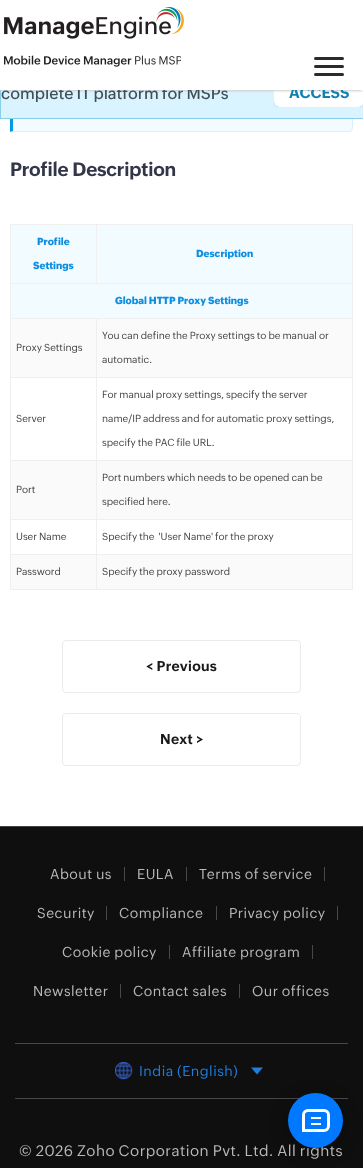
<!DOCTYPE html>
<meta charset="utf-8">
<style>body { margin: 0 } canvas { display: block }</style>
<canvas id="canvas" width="363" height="1168"></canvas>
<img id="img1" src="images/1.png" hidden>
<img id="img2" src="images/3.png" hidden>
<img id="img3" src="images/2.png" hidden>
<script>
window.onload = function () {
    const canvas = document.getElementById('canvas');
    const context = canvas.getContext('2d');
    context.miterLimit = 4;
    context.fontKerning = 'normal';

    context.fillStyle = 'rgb(255, 255, 255)';
    context.fillRect(0, 0, 363, 1168);
    context.fillStyle = 'rgb(242, 251, 255)';
    context.beginPath();
    context.moveTo(13, -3);
    context.lineTo(349, -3);
    context.bezierCurveTo(350.5, -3, 352, -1.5, 352, 0);
    context.lineTo(352, 128);
    context.bezierCurveTo(352, 129.5, 350.5, 131, 349, 131);
    context.lineTo(13, 131);
    context.closePath();
    context.fill();
    context.fillStyle = 'rgb(215, 241, 253)';
    context.beginPath();
    context.moveTo(353, 128);
    context.lineTo(353, -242);
    context.lineTo(352, -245);
    context.lineTo(351, -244);
    context.lineTo(352, -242);
    context.lineTo(352, 128);
    context.lineTo(351, 130);
    context.lineTo(352, 131);
    context.closePath();
    context.fill();
    context.beginPath();
    context.moveTo(349, 132);
    context.lineTo(352, 131);
    context.lineTo(351, 130);
    context.lineTo(349, 131);
    context.lineTo(13, 131);
    context.lineTo(10, 132);
    context.closePath();
    context.fill();
    context.fillStyle = 'rgb(2, 154, 229)';
    context.beginPath();
    context.moveTo(13, -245);
    context.lineTo(10, -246);
    context.lineTo(10, 132);
    context.lineTo(13, 131);
    context.closePath();
    context.fill();
    context.fillStyle = 'rgb(255, 255, 255)';
    context.fillRect(10, 0, 343, 40);
    context.drawImage(document.getElementById('img1'), 4, 7, 180, 32);
    context.fillStyle = 'rgb(218, 244, 255)';
    context.fillRect(1, 90, 362, 28);
    context.strokeStyle = 'rgb(137, 206, 235)';
    context.strokeRect(0.5, 49.5, 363, 69);
    context.fillStyle = 'rgb(19, 129, 176)';
    context.filter = 'blur(0.5px)';
    context.beginPath();
    context.roundRect(274, 61, 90, 46, 5);
    context.fill();
    context.filter = 'none';
    context.fillStyle = 'rgb(255, 255, 255)';
    context.beginPath();
    context.roundRect(274, 61, 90, 46, 5);
    context.fill();
    context.fillStyle = 'rgb(204, 204, 204)';
    context.filter = 'blur(1px)';
    context.beginPath();
    context.rect(1, 43, 361, 48);
    context.fill();
    context.filter = 'none';
    context.fillStyle = 'rgb(239, 239, 239)';
    context.fillRect(10, 224, 343, 1);
    context.fillRect(352, 224, 1, 366);
    context.fillRect(10, 589, 343, 1);
    context.fillRect(10, 224, 1, 366);
    context.fillStyle = 'rgb(242, 251, 255)';
    context.fillRect(11, 225, 341, 58);
    context.fillStyle = 'rgb(239, 239, 239)';
    context.fillRect(10, 283, 343, 1);
    context.fillRect(96, 224, 1, 60);
    context.fillStyle = 'rgb(242, 251, 255)';
    context.fillRect(11, 284, 341, 34);
    context.fillStyle = 'rgb(250, 250, 250)';
    context.fillRect(11, 319, 341, 58);
    context.fillStyle = 'rgb(239, 239, 239)';
    context.fillRect(10, 318, 343, 1);
    context.fillRect(10, 377, 343, 1);
    context.fillStyle = 'rgb(250, 250, 250)';
    context.fillRect(11, 461, 341, 58);
    context.fillStyle = 'rgb(239, 239, 239)';
    context.fillRect(10, 460, 343, 1);
    context.fillRect(10, 519, 343, 1);
    context.fillStyle = 'rgb(250, 250, 250)';
    context.fillRect(11, 555, 341, 34);
    context.fillStyle = 'rgb(239, 239, 239)';
    context.fillRect(10, 554, 343, 1);
    context.fillRect(96, 318, 1, 272);
    context.beginPath();
    context.roundRect(62.5, 640.5, 238, 52, 3.5);
    context.strokeStyle = 'rgb(236, 235, 235)';
    context.stroke();
    context.beginPath();
    context.roundRect(62.5, 713.5, 238, 52, 3.5);
    context.stroke();
    context.fillStyle = 'rgb(68, 68, 68)';
    context.fillRect(0, 826, 363, 1);
    context.fillStyle = 'rgb(15, 15, 15)';
    context.fillRect(0, 827, 363, 341);
    context.fillStyle = 'rgb(71, 72, 74)';
    context.fillRect(124, 867, 1, 14);
    context.fillRect(186, 867, 1, 14);
    context.fillRect(324, 867, 1, 14);
    context.fillRect(106, 906, 1, 14);
    context.fillRect(216, 906, 1, 14);
    context.fillRect(337, 906, 1, 14);
    context.fillRect(169, 945, 1, 14);
    context.fillRect(312, 945, 1, 14);
    context.fillRect(120, 984, 1, 14);
    context.fillRect(239, 984, 1, 14);
    context.fillRect(15, 1043, 333, 1);
    context.fillRect(15, 1098, 333, 1);
    context.drawImage(document.getElementById('img2'), 115, 1062, 18, 18);
    context.fillStyle = 'rgb(32, 125, 219)';
    context.beginPath();
    context.moveTo(251, 1067.5);
    context.lineTo(263, 1067.5);
    context.lineTo(257, 1074.5);
    context.closePath();
    context.fill();
    context.fillStyle = 'rgba(0, 0, 0, 0.25)';
    context.filter = 'blur(9px)';
    context.beginPath();
    context.roundRect(288, 1097, 55, 55, 27.5);
    context.fill();
    context.filter = 'none';
    context.font = '500 16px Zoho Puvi';
    context.fillStyle = 'rgb(66, 79, 86)';
    context.fillText('complete IT platform for MSPs', 1, 99);
    context.font = 'bold 15px Zoho Puvi';
    context.fillStyle = 'rgb(19, 129, 176)';
    context.fillText('ACCESS', 289, 98);
    context.fillStyle = 'rgb(255, 255, 255)';
    context.fillRect(0, 40, 363, 50);
    context.fillStyle = 'rgb(43, 43, 43)';
    context.beginPath();
    context.roundRect(314, 73, 30, 3, 1.5);
    context.fill();
    context.beginPath();
    context.roundRect(314, 65, 30, 3, 1.5);
    context.fill();
    context.beginPath();
    context.roundRect(314, 57, 30, 3, 1.5);
    context.fill();
    context.drawImage(document.getElementById('img3'), 4, 55, 177, 12);
    context.letterSpacing = '-0.2px';
    context.font = 'bold 19px Zoho Puvi';
    context.fillStyle = 'rgb(50, 54, 72)';
    context.fillText('Profile Description', 10, 176);
    context.letterSpacing = '0px';
    context.font = '800 10px Zoho Puvi';
    context.fillStyle = 'rgb(14, 142, 224)';
    context.fillText('Profile', 37, 245);
    context.fillText('Settings', 33, 269);
    context.fillText('Description', 196, 257);
    context.fillText('Global HTTP Proxy Settings', 115, 304);
    context.font = '10px Zoho Puvi';
    context.fillStyle = 'rgb(68, 68, 68)';
    context.fillText('Proxy Settings', 16, 351);
    context.fillText('You can define the Proxy settings to be manual or', 102, 339);
    context.fillText('automatic.', 102, 363);
    context.fillText('Server', 16, 422);
    context.fillText('For manual proxy settings, specify the server', 102, 398);
    context.fillText('name/IP address and for automatic proxy settings,', 102, 422);
    context.fillText('specify the PAC file URL.', 102, 446);
    context.fillText('Port', 16, 493);
    context.fillText('Port numbers which needs to be opened can be', 102, 481);
    context.fillText('specified here.', 102, 505);
    context.fillText('User Name', 16, 540);
    context.fillText('Specify the  \'User Name\' for the proxy', 102, 540);
    context.fillText('Password', 16, 575);
    context.fillText('Specify the proxy password', 102, 575);
    context.letterSpacing = '0.25px';
    context.font = 'bold 14px Zoho Puvi';
    context.fillStyle = 'rgb(25, 25, 25)';
    context.fillText('< Previous', 146, 671);
    context.fillText('Next >', 160, 744);
    context.letterSpacing = '0.5px';
    context.font = '14px Zoho Puvi';
    context.fillStyle = 'rgb(184, 184, 184)';
    context.fillText('About us', 50, 879);
    context.fillText('EULA', 137, 879);
    context.fillText('Terms of service', 199, 879);
    context.fillText('Security', 37, 918);
    context.fillText('Compliance', 119, 918);
    context.fillText('Privacy policy', 229, 918);
    context.fillText('Cookie policy', 62, 957);
    context.fillText('Affiliate program', 182, 957);
    context.fillText('Newsletter', 33, 996);
    context.fillText('Contact sales', 133, 996);
    context.fillText('Our offices', 252, 996);
    context.fillStyle = 'rgb(32, 125, 219)';
    context.fillText('India (English)', 139, 1076);
    context.font = '15px Zoho Puvi';
    context.fillStyle = 'rgb(184, 184, 184)';
    context.fillText('© 2026 Zoho Corporation Pvt. Ltd. All rights', 19, 1156);
    context.fillStyle = 'rgb(0, 120, 255)';
    context.beginPath();
    context.arc(315.5, 1120.5, 27.5, 0, 2 * Math.PI);
    context.fill();
    context.beginPath();
    context.roundRect(303.5, 1110.5, 25, 20, [4.5, 4.5, 4.5, 0]);
    context.strokeStyle = 'rgb(255, 255, 255)';
    context.lineWidth = 3;
    context.stroke();
    context.fillStyle = 'rgb(255, 255, 255)';
    context.fillRect(311, 1117, 10, 2);
    context.fillRect(311, 1123, 10, 2);
};
</script>
